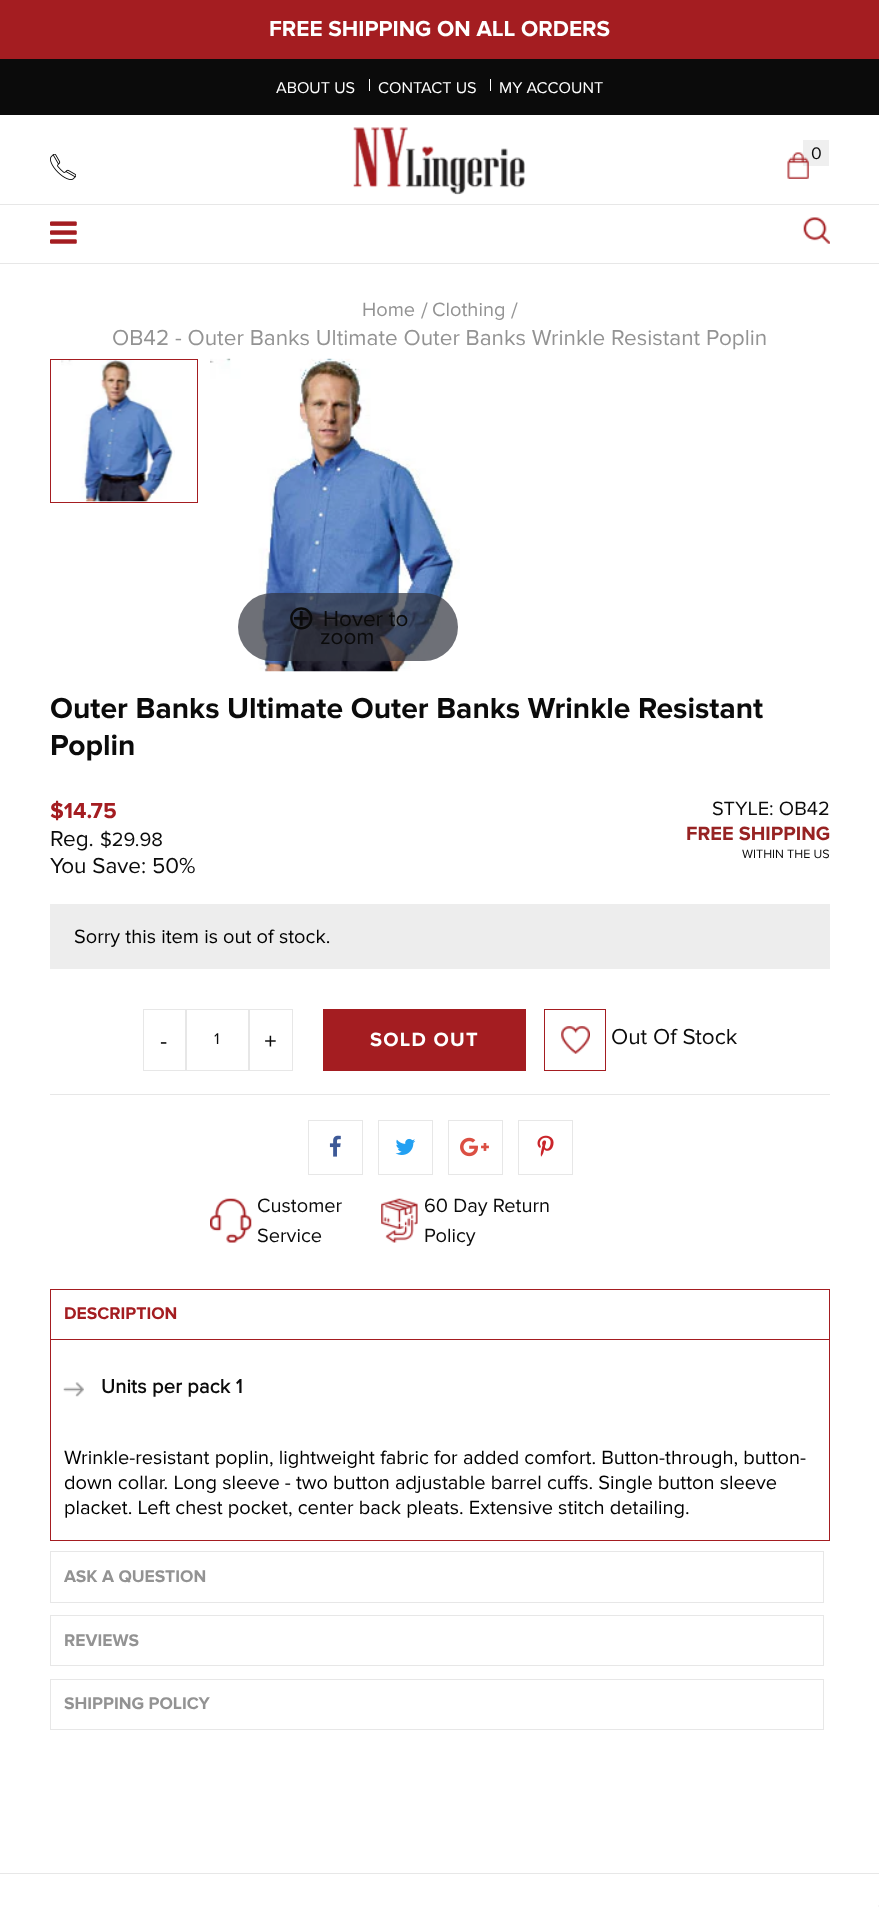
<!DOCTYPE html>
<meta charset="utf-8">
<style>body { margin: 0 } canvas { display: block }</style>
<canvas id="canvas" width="879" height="1907"></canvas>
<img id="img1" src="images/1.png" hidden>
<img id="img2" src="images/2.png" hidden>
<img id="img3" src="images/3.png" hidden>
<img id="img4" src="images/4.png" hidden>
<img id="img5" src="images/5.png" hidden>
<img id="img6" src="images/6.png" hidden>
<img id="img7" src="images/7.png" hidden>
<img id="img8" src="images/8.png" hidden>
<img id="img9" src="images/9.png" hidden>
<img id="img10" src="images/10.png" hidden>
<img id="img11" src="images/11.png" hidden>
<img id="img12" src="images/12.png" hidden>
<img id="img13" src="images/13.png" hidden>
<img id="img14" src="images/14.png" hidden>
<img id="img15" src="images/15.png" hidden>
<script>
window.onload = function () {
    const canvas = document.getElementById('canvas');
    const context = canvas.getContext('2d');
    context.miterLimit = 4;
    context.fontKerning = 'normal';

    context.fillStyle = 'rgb(255, 255, 255)';
    context.fillRect(0, 0, 879, 1907);
    context.fillStyle = 'rgb(164, 29, 33)';
    context.fillRect(0, 0, 879, 59);
    context.fillStyle = 'rgb(11, 11, 11)';
    context.fillRect(0, 59, 879, 56);
    context.fillStyle = 'rgb(255, 255, 255)';
    context.fillRect(369, 79, 1, 12);
    context.fillRect(490, 79, 1, 12);
    context.drawImage(document.getElementById('img1'), 50, 154, 26, 26);
    context.drawImage(document.getElementById('img2'), 353, 127, 172, 68);
    context.fillStyle = 'rgb(239, 239, 239)';
    context.fillRect(803, 140, 26, 26);
    context.drawImage(document.getElementById('img3'), 787, 152, 22, 27);
    context.fillStyle = 'rgb(231, 231, 231)';
    context.fillRect(0, 204, 879, 1);
    context.fillRect(0, 263, 879, 1);
    context.drawImage(document.getElementById('img4'), 50, 221, 27, 23);
    context.drawImage(document.getElementById('img5'), 803, 217, 27, 27);
    context.strokeStyle = 'rgb(164, 29, 33)';
    context.strokeRect(50.5, 359.5, 147, 143);
    context.drawImage(document.getElementById('img6'), 61, 360, 114, 142);
    context.drawImage(document.getElementById('img7'), 210, 358, 250, 314);
    context.fillStyle = 'rgba(49, 51, 61, 0.7)';
    context.beginPath();
    context.roundRect(238, 593, 220, 68, 34);
    context.fill();
    context.fillStyle = 'rgb(231, 231, 231)';
    context.fillRect(50, 1094, 780, 1);
    context.fillStyle = 'rgb(237, 237, 237)';
    context.fillRect(50, 904, 780, 65);
    context.strokeStyle = 'rgb(231, 231, 231)';
    context.strokeRect(143.5, 1009.5, 42, 61);
    context.strokeRect(186.5, 1009.5, 62, 61);
    context.strokeRect(249.5, 1009.5, 43, 61);
    context.fillStyle = 'rgb(164, 29, 33)';
    context.fillRect(323, 1009, 203, 62);
    context.drawImage(document.getElementById('img8'), 561, 1026, 29, 28);
    context.strokeStyle = 'rgb(164, 29, 33)';
    context.strokeRect(544.5, 1009.5, 61, 61);
    context.strokeStyle = 'rgb(231, 231, 231)';
    context.strokeRect(308.5, 1120.5, 54, 54);
    context.drawImage(document.getElementById('img9'), 329, 1135, 12, 22);
    context.strokeRect(378.5, 1120.5, 54, 54);
    context.drawImage(document.getElementById('img10'), 395, 1138, 21, 17);
    context.strokeRect(448.5, 1120.5, 54, 54);
    context.drawImage(document.getElementById('img11'), 460, 1137, 29, 20);
    context.strokeRect(518.5, 1120.5, 54, 54);
    context.drawImage(document.getElementById('img12'), 537, 1135, 17, 22);
    context.drawImage(document.getElementById('img13'), 210, 1198, 42, 45);
    context.drawImage(document.getElementById('img14'), 381, 1198, 37, 45);
    context.strokeStyle = 'rgb(164, 29, 33)';
    context.strokeRect(50.5, 1289.5, 779, 50);
    context.fillRect(829, 1340, 1, 201);
    context.fillRect(50, 1540, 780, 1);
    context.fillRect(50, 1340, 1, 201);
    context.drawImage(document.getElementById('img15'), 63, 1382, 21, 15);
    context.strokeStyle = 'rgb(231, 231, 231)';
    context.strokeRect(50.5, 1551.5, 773, 51);
    context.strokeRect(50.5, 1615.5, 773, 50);
    context.strokeRect(50.5, 1679.5, 773, 50);
    context.fillStyle = 'rgb(231, 231, 231)';
    context.fillRect(0, 1873, 879, 1);
    context.fillStyle = 'rgb(245, 245, 245)';
    context.fillRect(878, 1905, 1, 2);
    context.font = 'bold 22.5px Proxima Nova';
    context.fillStyle = 'rgb(255, 255, 255)';
    context.fillText('FREE SHIPPING ON ALL ORDERS', 269, 36);
    context.font = '16.25px Proxima Nova';
    context.fillText('ABOUT US', 276, 93);
    context.fillText('CONTACT US', 378, 93);
    context.fillText('MY ACCOUNT', 499, 93);
    context.font = '17.5px Proxima Nova';
    context.fillStyle = 'rgb(11, 11, 11)';
    context.fillText('0', 811, 159);
    context.font = '20px Proxima Nova';
    context.fillStyle = 'rgb(147, 147, 147)';
    context.fillText('Home', 362, 316);
    context.font = '22.5px Proxima Nova';
    context.fillText('/', 421, 318);
    context.font = '20px Proxima Nova';
    context.fillText('Clothing', 432, 316);
    context.font = '22.5px Proxima Nova';
    context.fillText('/', 511, 318);
    context.fillText('OB42 - Outer Banks Ultimate Outer Banks Wrinkle Resistant Poplin', 112, 345);
    context.font = '34px DejaVu Sans';
    context.fillStyle = 'rgb(11, 11, 11)';
    context.fillText('⊕', 287, 629);
    context.font = '22.5px Proxima Nova';
    context.fillText('Hover to', 323, 626);
    context.fillText('zoom', 320, 644);
    context.font = 'bold 30px Proxima Nova';
    context.fillText('Outer Banks Ultimate Outer Banks Wrinkle Resistant', 50, 718);
    context.fillText('Poplin', 50, 755);
    context.font = 'bold 22.5px Proxima Nova';
    context.fillStyle = 'rgb(164, 29, 33)';
    context.fillText('$14.75', 50, 818);
    context.font = '22.5px Proxima Nova';
    context.fillStyle = 'rgb(11, 11, 11)';
    context.fillText('Reg.', 50, 846);
    context.font = '20px Proxima Nova';
    context.fillText('$29.98', 100, 846);
    context.font = '22.5px Proxima Nova';
    context.fillText('You Save: 50%', 50, 873);
    context.font = '20px Proxima Nova';
    context.fillText('STYLE: OB42', 712, 815);
    context.font = 'bold 20px Proxima Nova';
    context.fillStyle = 'rgb(151, 35, 35)';
    context.fillText('FREE SHIPPING', 686, 840);
    context.font = '12.5px Proxima Nova';
    context.fillStyle = 'rgb(11, 11, 11)';
    context.fillText('WITHIN THE US', 742, 858);
    context.font = '20px Proxima Nova';
    context.fillStyle = 'rgb(0, 0, 0)';
    context.fillText('Sorry this item is out of stock.', 74, 943);
    context.font = '22.5px Open Sans';
    context.fillStyle = 'rgb(11, 11, 11)';
    context.fillText('-', 160, 1049);
    context.font = '16.25px Proxima Nova';
    context.fillText('1', 214, 1044);
    context.font = '22.5px Open Sans';
    context.fillText('+', 264, 1049);
    context.letterSpacing = '1.25px';
    context.font = 'bold 20px Proxima Nova';
    context.fillStyle = 'rgb(255, 255, 255)';
    context.fillText('SOLD OUT', 370, 1046);
    context.letterSpacing = '0px';
    context.font = '22.5px Proxima Nova';
    context.fillStyle = 'rgb(11, 11, 11)';
    context.fillText('Out Of Stock', 611, 1044);
    context.font = '20px Proxima Nova';
    context.fillText('Customer', 257, 1212);
    context.fillText('Service', 257, 1242);
    context.fillText('60 Day Return', 424, 1212);
    context.fillText('Policy', 424, 1242);
    context.font = 'bold 17.5px Proxima Nova';
    context.fillStyle = 'rgb(164, 29, 33)';
    context.fillText('DESCRIPTION', 64, 1319);
    context.letterSpacing = '0.2px';
    context.font = 'bold 20px "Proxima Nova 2"';
    context.fillStyle = 'rgb(11, 11, 11)';
    context.fillText('Units per pack 1', 101, 1393);
    context.letterSpacing = '0px';
    context.font = '20px Proxima Nova';
    context.fillStyle = 'rgb(0, 0, 0)';
    context.fillText('Wrinkle-resistant poplin, lightweight fabric for added comfort. Button-through, button-', 64, 1464);
    context.fillText('down collar. Long sleeve - two button adjustable barrel cuffs. Single button sleeve', 64, 1489);
    context.fillText('placket. Left chest pocket, center back pleats. Extensive stitch detailing.', 64, 1514);
    context.font = 'bold 17.5px Proxima Nova';
    context.fillStyle = 'rgb(147, 147, 147)';
    context.fillText('ASK A QUESTION', 64, 1582);
    context.fillText('REVIEWS', 64, 1646);
    context.fillText('SHIPPING POLICY', 64, 1709);
};
</script>
